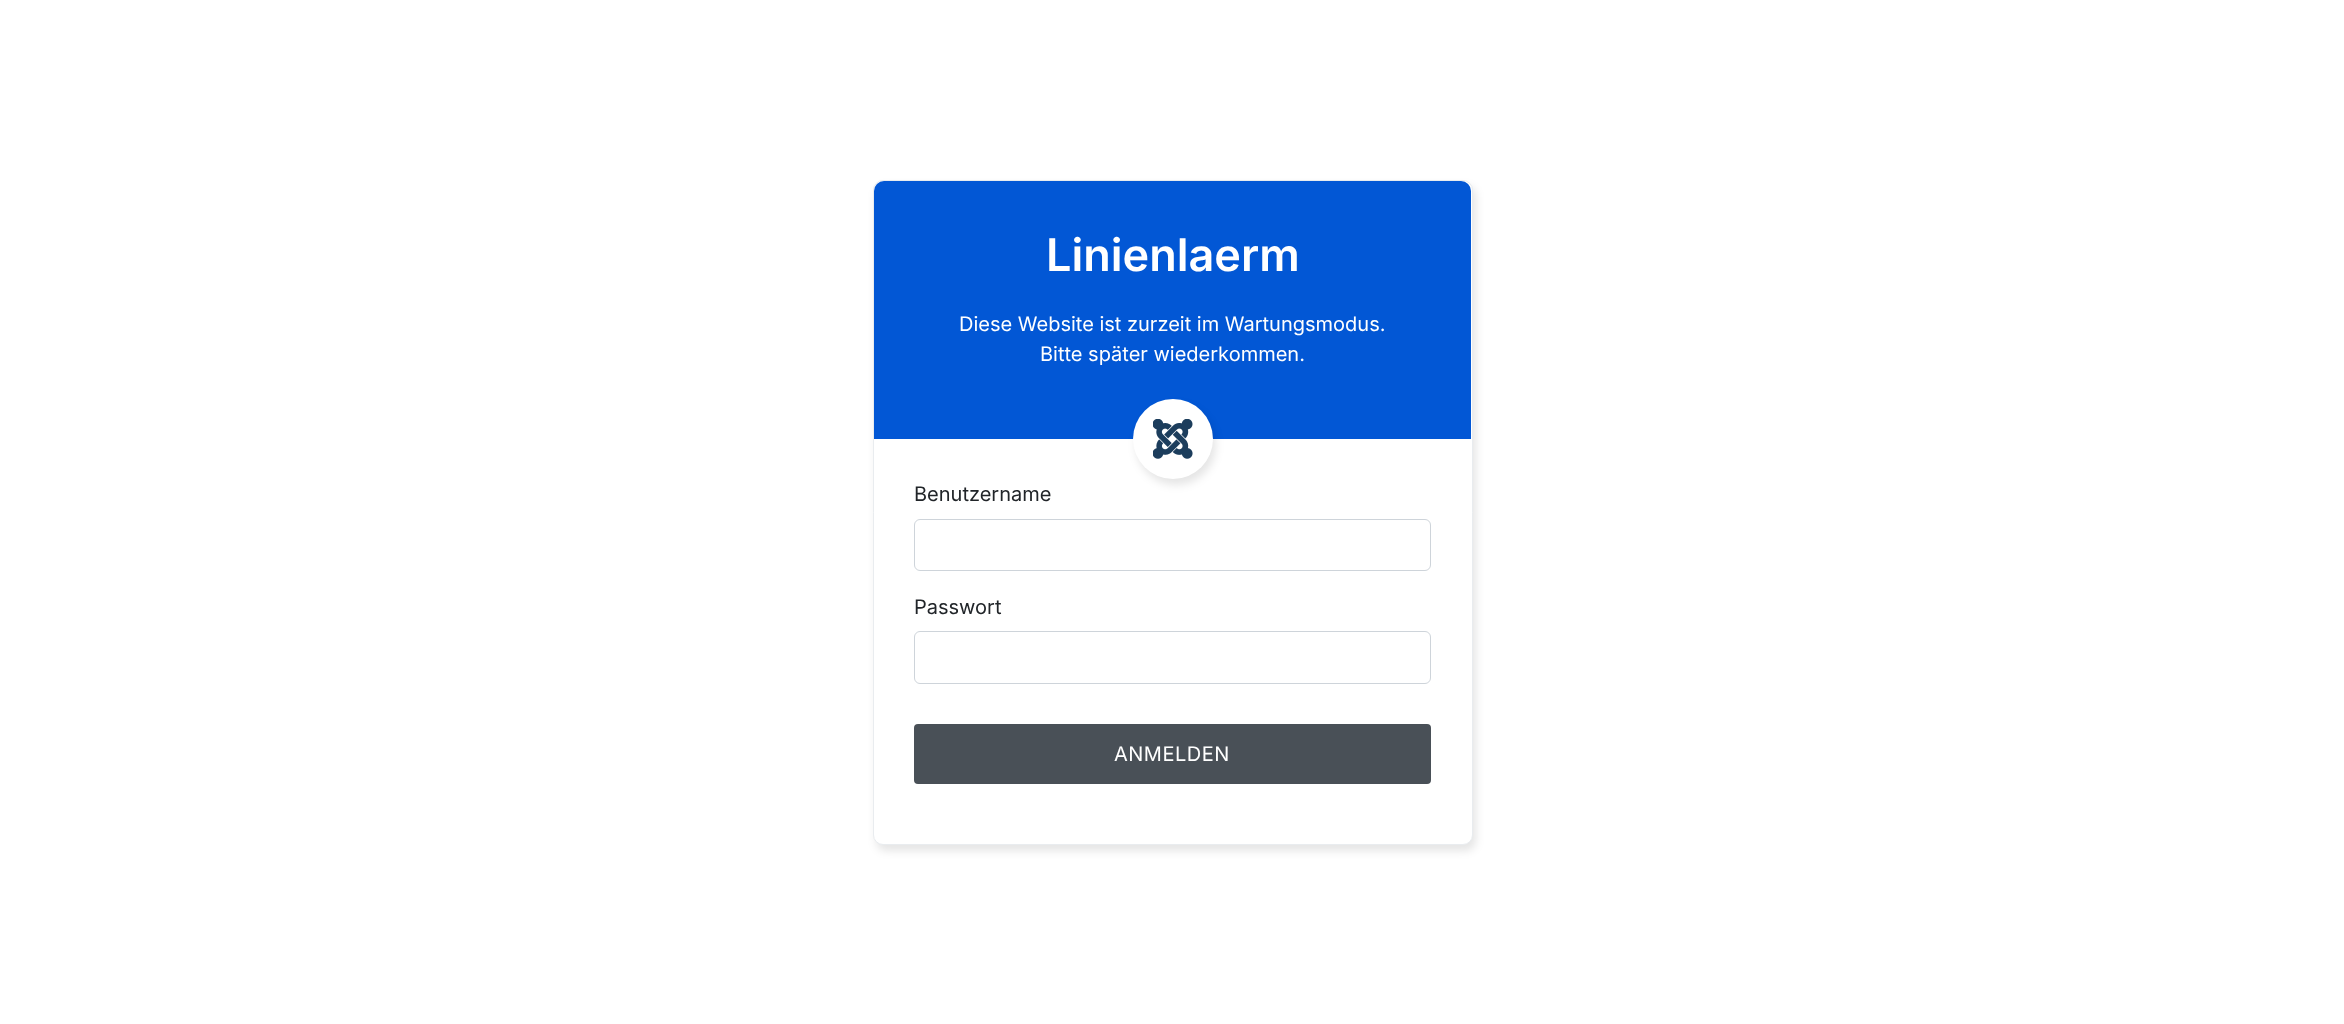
<!DOCTYPE html>
<meta charset="utf-8">
<style>body { margin: 0 } canvas { display: block }</style>
<canvas id="canvas" width="2344" height="1024"></canvas>
<img id="img1" src="images/1.png" hidden>
<script>
window.onload = function () {
    const canvas = document.getElementById('canvas');
    const context = canvas.getContext('2d');
    context.miterLimit = 4;
    context.fontKerning = 'normal';

    context.fillStyle = 'rgb(255, 255, 255)';
    context.fillRect(0, 0, 2344, 1024);
    context.fillStyle = 'rgba(0, 0, 0, 0.1)';
    context.filter = 'blur(4.5px)';
    context.beginPath();
    context.roundRect(876, 186, 600, 665, 10);
    context.fill();
    context.filter = 'none';
    context.fillStyle = 'rgb(255, 255, 255)';
    context.beginPath();
    context.roundRect(873.5, 180.5, 599, 664, 9.5);
    context.fill();
    context.strokeStyle = 'rgb(233, 236, 239)';
    context.stroke();
    context.fillStyle = 'rgb(2, 87, 213)';
    context.beginPath();
    context.roundRect(874, 181, 597, 258, [10, 10, 0, 0]);
    context.fill();
    context.fillStyle = 'rgba(0, 0, 0, 0.1)';
    context.filter = 'blur(4.5px)';
    context.beginPath();
    context.roundRect(1136, 405, 80, 80, 40);
    context.fill();
    context.filter = 'none';
    context.fillStyle = 'rgb(255, 255, 255)';
    context.beginPath();
    context.arc(1173, 439, 40, 0, 2 * Math.PI);
    context.fill();
    context.drawImage(document.getElementById('img1'), 1153, 419, 40, 40);
    context.beginPath();
    context.roundRect(914.5, 519.5, 516, 51, 5.5);
    context.strokeStyle = 'rgb(206, 212, 218)';
    context.stroke();
    context.beginPath();
    context.roundRect(914.5, 631.5, 516, 52, 5.5);
    context.stroke();
    context.fillStyle = 'rgb(73, 80, 87)';
    context.beginPath();
    context.roundRect(914, 724, 517, 60, 4);
    context.fill();
    context.font = '600 45px Inter';
    context.fillStyle = 'rgb(255, 255, 255)';
    context.fillText('Linienlaerm', 1046, 271);
    context.font = '20px Inter';
    context.fillText('Diese Website ist zurzeit im Wartungsmodus.', 959, 331);
    context.fillText('Bitte später wiederkommen.', 1040, 361);
    context.fillStyle = 'rgb(33, 37, 41)';
    context.fillText('Benutzername', 914, 501);
    context.fillText('Passwort', 914, 614);
    context.letterSpacing = '0.5px';
    context.fillStyle = 'rgb(255, 255, 255)';
    context.fillText('ANMELDEN', 1114, 761);
};
</script>
